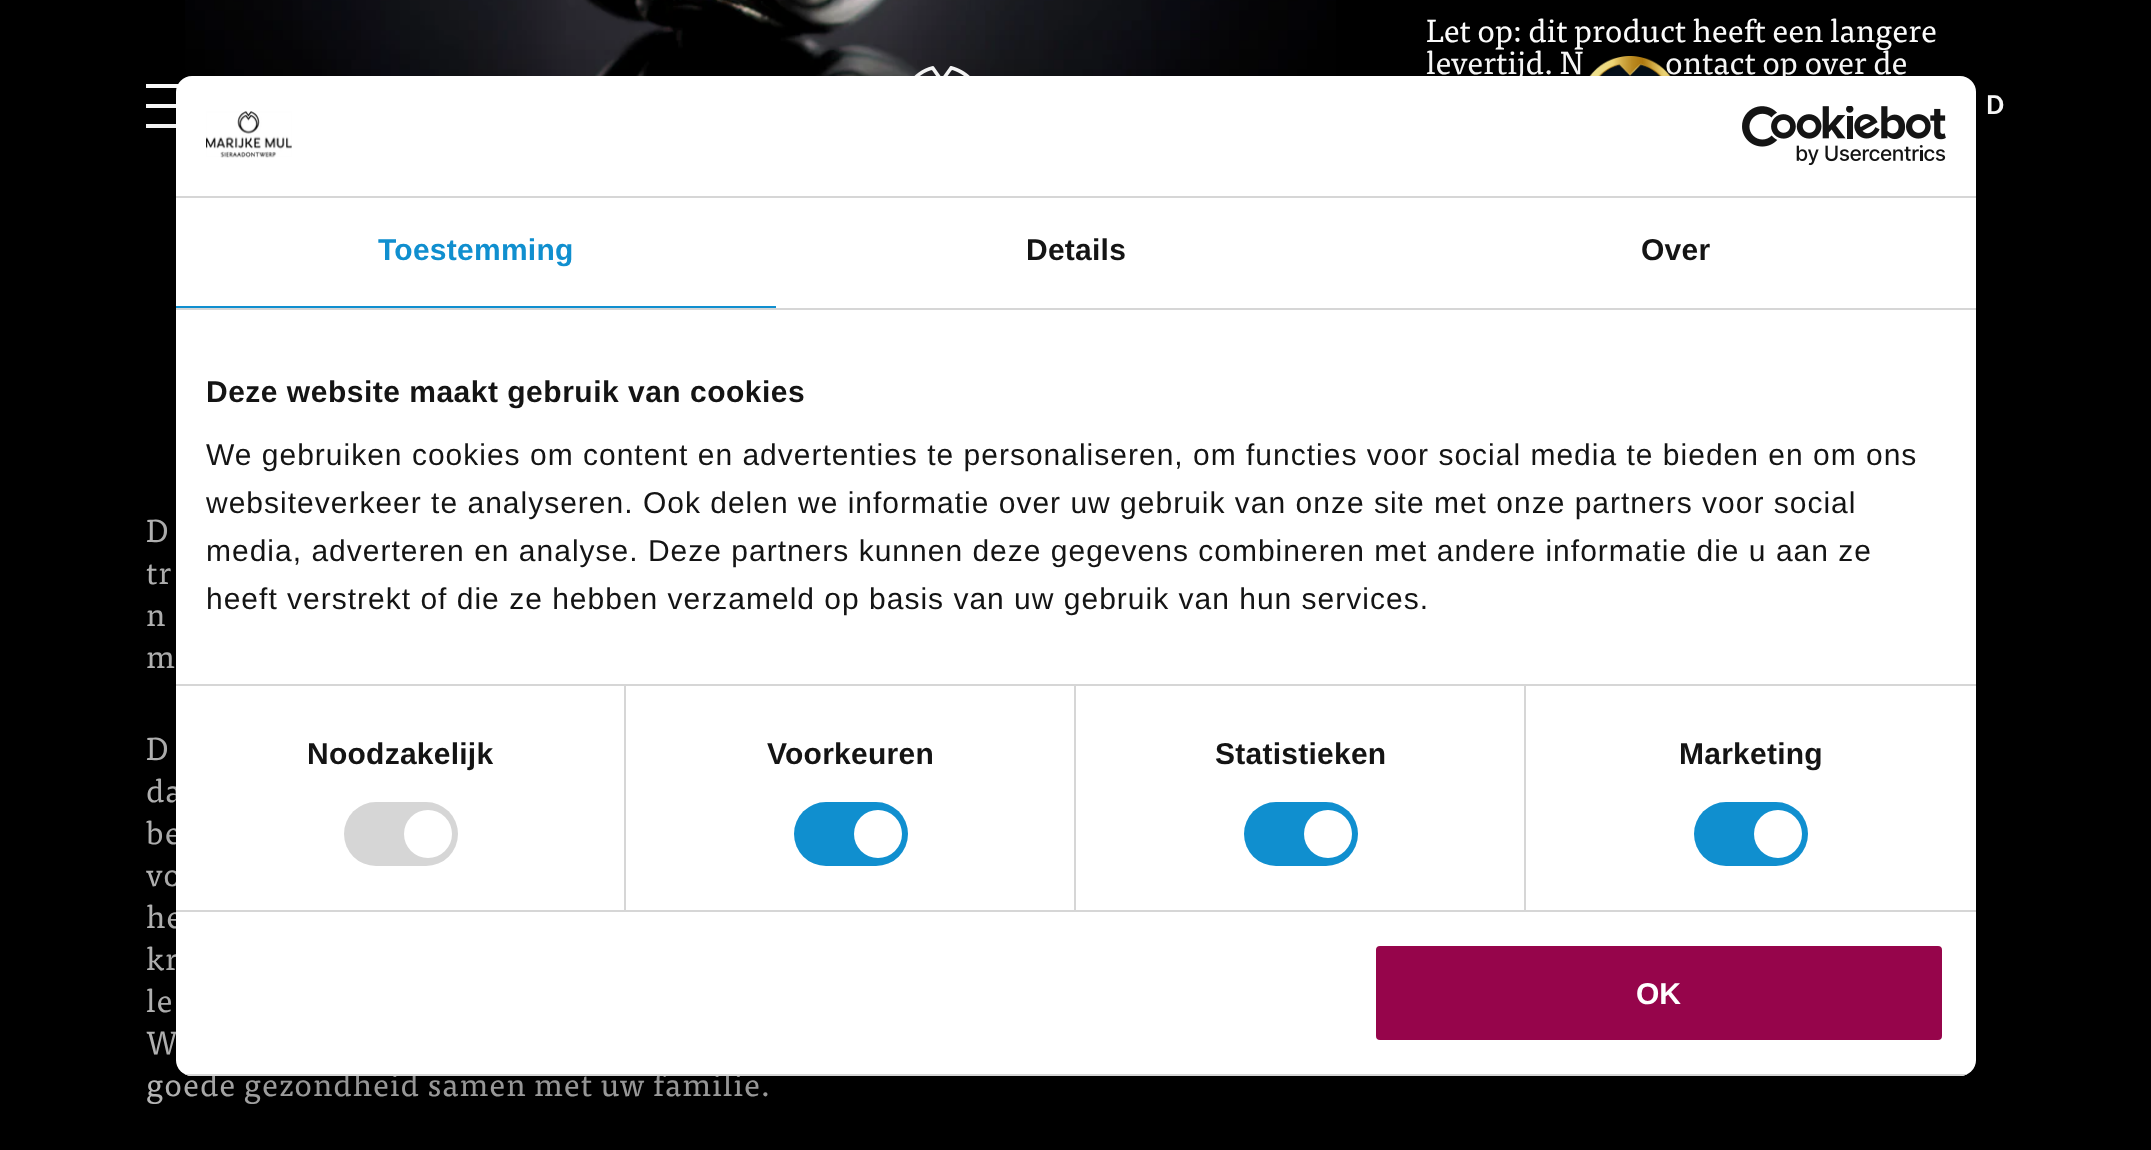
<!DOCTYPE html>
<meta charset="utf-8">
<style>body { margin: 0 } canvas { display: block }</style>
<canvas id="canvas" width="2151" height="1150"></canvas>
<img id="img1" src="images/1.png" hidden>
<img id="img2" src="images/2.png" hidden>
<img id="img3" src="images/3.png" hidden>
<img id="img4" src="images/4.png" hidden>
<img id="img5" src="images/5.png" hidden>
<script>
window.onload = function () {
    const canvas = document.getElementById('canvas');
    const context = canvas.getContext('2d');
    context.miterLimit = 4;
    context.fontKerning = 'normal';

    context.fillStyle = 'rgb(0, 0, 0)';
    context.fillRect(0, 0, 2151, 1150);
    context.drawImage(document.getElementById('img1'), 185, 0, 1151, 78);
    context.drawImage(document.getElementById('img2'), 914, 66, 56, 10);
    context.fillStyle = 'rgb(255, 255, 255)';
    context.fillRect(146, 84, 33, 4);
    context.fillRect(146, 104, 38, 4);
    context.fillRect(146, 124, 30, 4);
    context.font = '32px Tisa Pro';
    context.fillText('Let op: dit product heeft een langere', 1426, 42);
    context.fillText('levertijd. N', 1426, 74);
    context.fillText('ontact op over de', 1665, 74);
    context.letterSpacing = '1px';
    context.fillStyle = 'rgb(197, 197, 197)';
    context.fillText('D', 146, 542);
    context.fillText('tr', 146, 584);
    context.fillText('n', 146, 626);
    context.fillText('m', 146, 668);
    context.fillText('D', 146, 760);
    context.fillText('da', 146, 802);
    context.fillText('be', 146, 844);
    context.fillText('vo', 146, 886);
    context.fillText('he', 146, 928);
    context.fillText('kr', 146, 970);
    context.fillText('le', 146, 1012);
    context.fillText('W', 146, 1054);
    context.fillText('goede gezondheid samen met uw familie.', 146, 1096);
    context.drawImage(document.getElementById('img3'), 1589, 56, 82, 20);
    context.letterSpacing = '2px';
    context.font = '28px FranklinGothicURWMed';
    context.fillStyle = 'rgb(255, 255, 255)';
    context.fillText('D', 1986, 114);
    context.fillStyle = 'rgba(0, 0, 0, 0.3)';
    context.filter = 'blur(68px)';
    context.beginPath();
    context.roundRect(176, 140, 1800, 1000, 16);
    context.fill();
    context.filter = 'none';
    context.fillStyle = 'rgb(255, 255, 255)';
    context.beginPath();
    context.roundRect(176, 76, 1800, 1000, 16);
    context.fill();
    context.fillStyle = 'rgb(214, 214, 214)';
    context.fillRect(176, 196, 1800, 2);
    context.drawImage(document.getElementById('img4'), 206, 111, 86, 47);
    context.drawImage(document.getElementById('img5'), 1742, 106, 204, 60);
    context.fillRect(176, 308, 1800, 2);
    context.fillStyle = 'rgb(16, 143, 207)';
    context.fillRect(176, 306, 600, 2);
    context.letterSpacing = '0.25px';
    context.font = 'bold 30px Liberation Sans';
    context.fillText('Toestemming', 378, 260);
    context.fillStyle = 'rgb(20, 20, 20)';
    context.fillText('Details', 1026, 260);
    context.fillText('Over', 1641, 260);
    context.fillStyle = 'rgb(214, 214, 214)';
    context.fillRect(176, 684, 1800, 2);
    context.letterSpacing = '0.5px';
    context.fillStyle = 'rgb(20, 20, 20)';
    context.fillText('Deze website maakt gebruik van cookies', 206, 402);
    context.letterSpacing = '1px';
    context.font = '30px Liberation Sans';
    context.fillText('We gebruiken cookies om content en advertenties te personaliseren, om functies voor social media te bieden en om ons', 206, 465);
    context.fillText('websiteverkeer te analyseren. Ook delen we informatie over uw gebruik van onze site met onze partners voor social', 206, 513);
    context.fillText('media, adverteren en analyse. Deze partners kunnen deze gegevens combineren met andere informatie die u aan ze', 206, 561);
    context.fillText('heeft verstrekt of die ze hebben verzameld op basis van uw gebruik van hun services.', 206, 609);
    context.fillStyle = 'rgb(214, 214, 214)';
    context.fillRect(176, 910, 1800, 2);
    context.fillRect(624, 686, 2, 224);
    context.letterSpacing = '0.25px';
    context.font = 'bold 30px Liberation Sans';
    context.fillStyle = 'rgb(20, 20, 20)';
    context.fillText('Noodzakelijk', 307, 764);
    context.fillStyle = 'rgb(214, 214, 214)';
    context.beginPath();
    context.roundRect(344, 802, 114, 64, 32);
    context.fill();
    context.fillStyle = 'rgb(255, 255, 255)';
    context.beginPath();
    context.arc(428, 834, 24, 0, 2 * Math.PI);
    context.fill();
    context.fillStyle = 'rgb(214, 214, 214)';
    context.fillRect(1074, 686, 2, 224);
    context.fillStyle = 'rgb(20, 20, 20)';
    context.fillText('Voorkeuren', 767, 764);
    context.fillStyle = 'rgb(16, 143, 207)';
    context.beginPath();
    context.roundRect(794, 802, 114, 64, 32);
    context.fill();
    context.fillStyle = 'rgb(255, 255, 255)';
    context.beginPath();
    context.arc(878, 834, 24, 0, 2 * Math.PI);
    context.fill();
    context.fillStyle = 'rgb(214, 214, 214)';
    context.fillRect(1524, 686, 2, 224);
    context.fillStyle = 'rgb(20, 20, 20)';
    context.fillText('Statistieken', 1215, 764);
    context.fillStyle = 'rgb(16, 143, 207)';
    context.beginPath();
    context.roundRect(1244, 802, 114, 64, 32);
    context.fill();
    context.fillStyle = 'rgb(255, 255, 255)';
    context.beginPath();
    context.arc(1328, 834, 24, 0, 2 * Math.PI);
    context.fill();
    context.fillStyle = 'rgb(20, 20, 20)';
    context.fillText('Marketing', 1679, 764);
    context.fillStyle = 'rgb(16, 143, 207)';
    context.beginPath();
    context.roundRect(1694, 802, 114, 64, 32);
    context.fill();
    context.fillStyle = 'rgb(255, 255, 255)';
    context.beginPath();
    context.arc(1778, 834, 24, 0, 2 * Math.PI);
    context.fill();
    context.save();
    context.beginPath();
    context.roundRect(176, 76, 1800, 1000, 16);
    context.clip();
    context.fillStyle = 'rgb(214, 214, 214)';
    context.fillRect(176, 1074, 1800, 2);
    context.restore();
    context.fillStyle = 'rgb(150, 5, 75)';
    context.beginPath();
    context.roundRect(1374, 944, 570, 98, 6);
    context.fill();
    context.strokeStyle = 'rgb(255, 255, 255)';
    context.lineWidth = 4;
    context.stroke();
    context.letterSpacing = '0px';
    context.fillStyle = 'rgb(255, 255, 255)';
    context.fillText('OK', 1636, 1004);
};
</script>
